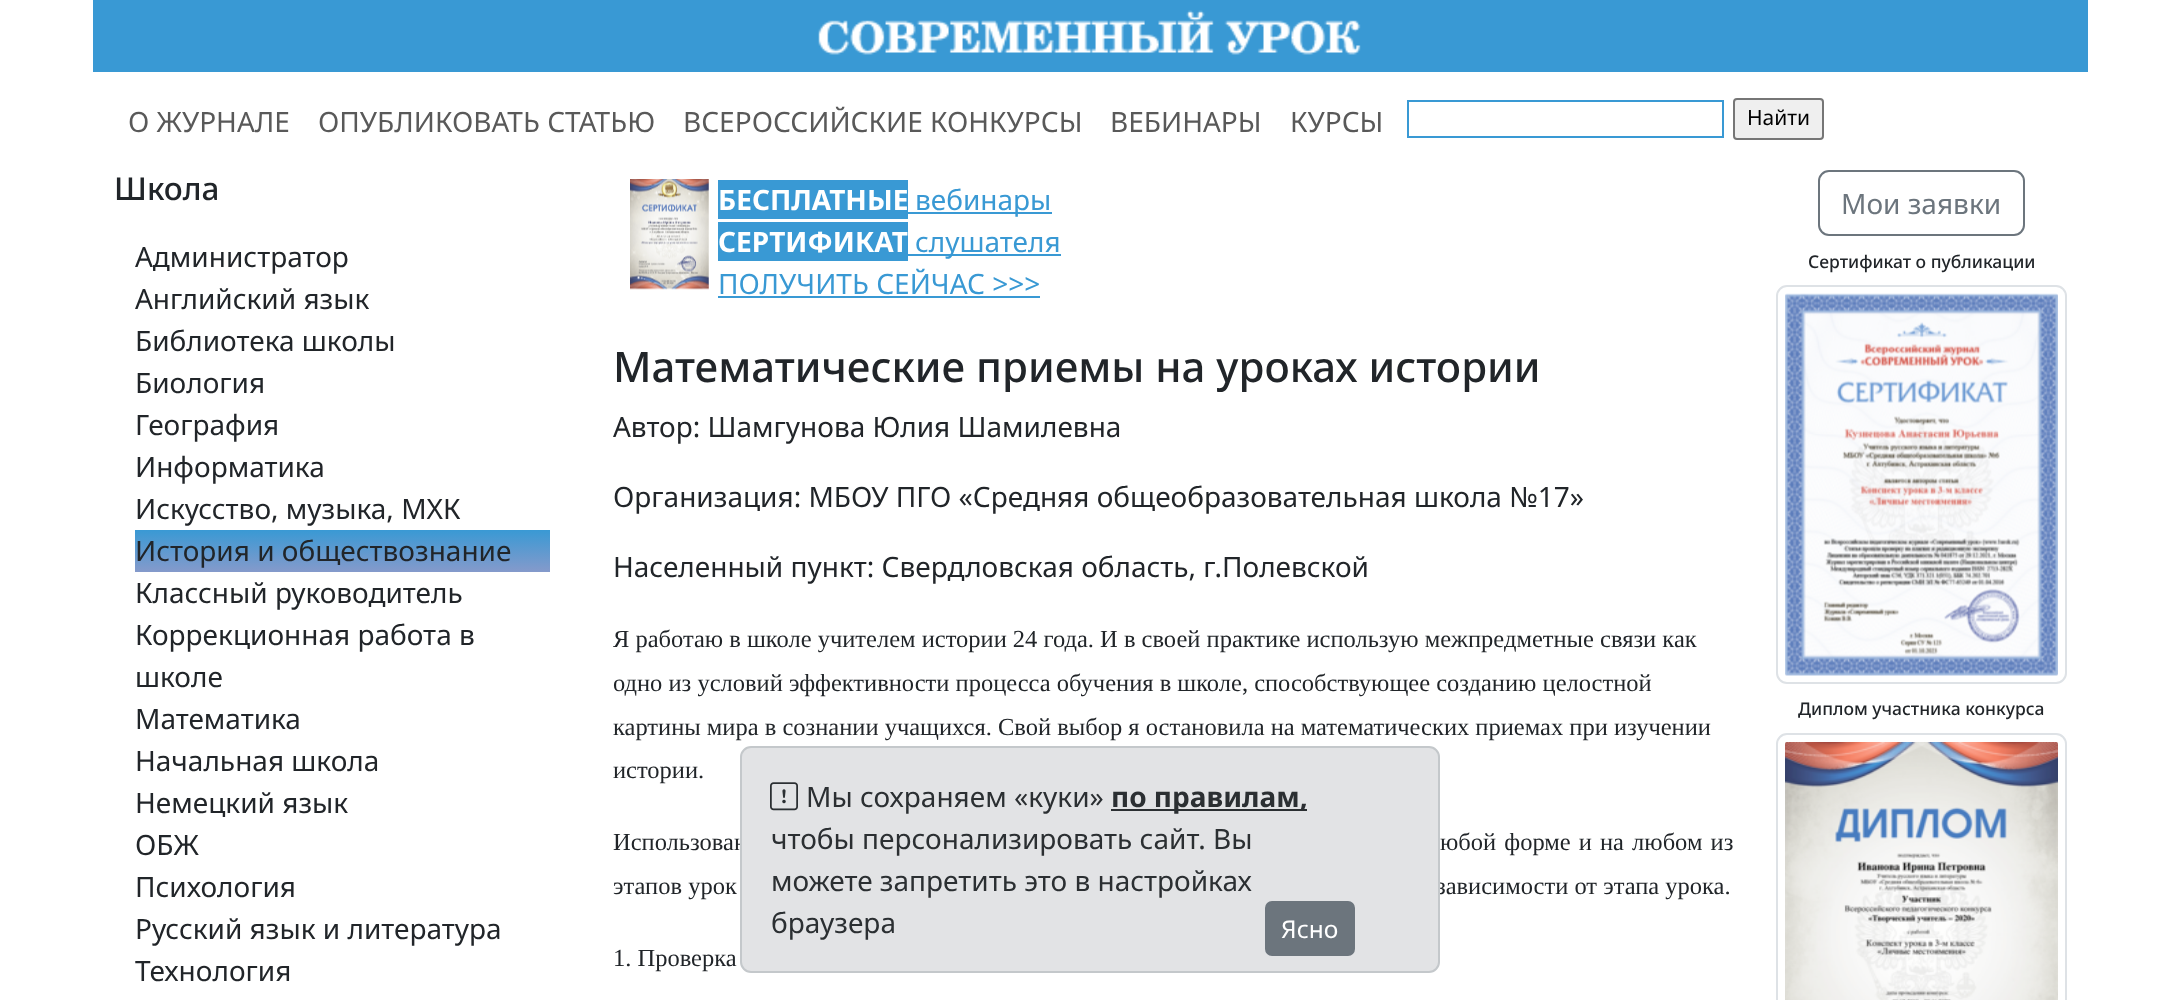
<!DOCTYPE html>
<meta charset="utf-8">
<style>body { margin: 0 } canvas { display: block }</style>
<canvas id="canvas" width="2179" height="1000"></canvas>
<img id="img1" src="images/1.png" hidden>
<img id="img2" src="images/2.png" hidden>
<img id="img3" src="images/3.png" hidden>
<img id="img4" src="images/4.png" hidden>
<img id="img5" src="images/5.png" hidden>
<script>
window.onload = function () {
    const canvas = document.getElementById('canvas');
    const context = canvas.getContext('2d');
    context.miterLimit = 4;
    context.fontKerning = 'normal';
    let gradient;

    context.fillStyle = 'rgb(255, 255, 255)';
    context.fillRect(0, 0, 2179, 1000);
    context.fillStyle = 'rgb(57, 153, 212)';
    context.fillRect(93, 0, 1995, 72);
    context.drawImage(document.getElementById('img1'), 818, 10, 543, 45);
    context.strokeStyle = 'rgb(57, 153, 212)';
    context.lineWidth = 2;
    context.strokeRect(1408, 101, 315, 36);
    context.fillStyle = 'rgb(239, 239, 239)';
    context.beginPath();
    context.roundRect(1734, 99, 89, 40, 3);
    context.fill();
    context.strokeStyle = 'rgb(118, 118, 118)';
    context.stroke();
    gradient = context.createLinearGradient(342, 530, 342, 572);
    gradient.addColorStop(0, 'rgb(57, 153, 212)');
    gradient.addColorStop(1, 'rgb(133, 154, 203)');
    context.fillStyle = gradient;
    context.fillRect(135, 530, 415, 42);
    context.drawImage(document.getElementById('img2'), 630, 179, 79, 111);
    context.fillStyle = 'rgb(57, 153, 212)';
    context.fillRect(718, 180, 190, 39);
    context.fillRect(908, 212, 144, 2);
    context.fillRect(718, 222, 190, 39);
    context.fillRect(908, 254, 153, 2);
    context.fillRect(718, 296, 322, 2);
    context.beginPath();
    context.roundRect(1819, 171, 205, 64, 10);
    context.strokeStyle = 'rgb(108, 117, 125)';
    context.stroke();
    context.beginPath();
    context.roundRect(1777, 286, 289, 397, 10);
    context.strokeStyle = 'rgb(222, 226, 230)';
    context.stroke();
    context.drawImage(document.getElementById('img3'), 1785, 293, 273, 383);
    context.beginPath();
    context.roundRect(1777, 734, 289, 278, 10);
    context.stroke();
    context.drawImage(document.getElementById('img4'), 1785, 742, 273, 258);
    context.font = '28px Noto Sans';
    context.fillStyle = 'rgb(89, 89, 89)';
    context.fillText('О ЖУРНАЛЕ', 128, 132);
    context.fillText('ОПУБЛИКОВАТЬ СТАТЬЮ', 318, 132);
    context.fillText('ВСЕРОССИЙСКИЕ КОНКУРСЫ', 683, 132);
    context.fillText('ВЕБИНАРЫ', 1110, 132);
    context.fillText('КУРСЫ', 1290, 132);
    context.font = '21px Noto Sans';
    context.fillStyle = 'rgb(0, 0, 0)';
    context.fillText('Найти', 1747, 125);
    context.font = '500 31.5px Noto Sans';
    context.fillStyle = 'rgb(33, 37, 41)';
    context.fillText('Школа', 114, 200);
    context.font = '28px Noto Sans';
    context.fillText('Администратор', 135, 267);
    context.fillText('Английский язык', 135, 309);
    context.fillText('Библиотека школы', 135, 351);
    context.fillText('Биология', 135, 393);
    context.fillText('География', 135, 435);
    context.fillText('Информатика', 135, 477);
    context.fillText('Искусство, музыка, МХК', 135, 519);
    context.fillText('История и обществознание', 135, 561);
    context.fillText('Классный руководитель', 135, 603);
    context.fillText('Коррекционная работа в', 135, 645);
    context.fillText('школе', 135, 687);
    context.fillText('Математика', 135, 729);
    context.fillText('Начальная школа', 135, 771);
    context.fillText('Немецкий язык', 135, 813);
    context.fillText('ОБЖ', 135, 855);
    context.fillText('Психология', 135, 897);
    context.fillText('Русский язык и литература', 135, 939);
    context.fillText('Технология', 135, 981);
    context.font = 'bold 28px Noto Sans';
    context.fillStyle = 'rgb(255, 255, 255)';
    context.fillText('БЕСПЛАТНЫЕ', 718, 210);
    context.font = '28px Noto Sans';
    context.fillStyle = 'rgb(57, 153, 212)';
    context.fillText('вебинары', 915, 210);
    context.font = 'bold 28px Noto Sans';
    context.fillStyle = 'rgb(255, 255, 255)';
    context.fillText('СЕРТИФИКАТ', 718, 252);
    context.font = '28px Noto Sans';
    context.fillStyle = 'rgb(57, 153, 212)';
    context.fillText('слушателя', 915, 252);
    context.fillText('ПОЛУЧИТЬ СЕЙЧАС >>>', 718, 294);
    context.font = '500 42px Noto Sans';
    context.fillStyle = 'rgb(33, 37, 41)';
    context.fillText('Математические приемы на уроках истории', 613, 382);
    context.font = '28px Noto Sans';
    context.fillText('Автор: Шамгунова Юлия Шамилевна', 613, 437);
    context.fillText('Организация: МБОУ ПГО «Средняя общеобразовательная школа №17»', 613, 507);
    context.fillText('Населенный пункт: Свердловская область, г.Полевской', 613, 577);
    context.font = '24.5px Liberation Serif';
    context.fillText('Я работаю в школе учителем истории 24 года. И в своей практике использую межпредметные связи как', 613, 647);
    context.fillText('одно из условий эффективности процесса обучения в школе, способствующее созданию целостной', 613, 691);
    context.fillText('картины мира в сознании учащихся. Свой выбор я остановила на математических приемах при изучении', 613, 735);
    context.fillText('истории.', 613, 778);
    context.wordSpacing = '2px';
    context.fillText('Использован', 613, 850);
    context.fillText('юбой форме и на любом из', 1440, 850);
    context.wordSpacing = '0px';
    context.fillText('этапов урок', 613, 894);
    context.fillText('зависимости от этапа урока.', 1436, 894);
    context.fillText('1. Проверка', 613, 966);
    context.font = '28px Noto Sans';
    context.fillStyle = 'rgb(108, 117, 125)';
    context.fillText('Мои заявки', 1841, 214);
    context.font = '500 17.5px Noto Sans';
    context.fillStyle = 'rgb(33, 37, 41)';
    context.fillText('Сертификат о публикации', 1808, 268);
    context.fillText('Диплом участника конкурса', 1798, 715);
    context.fillStyle = 'rgb(226, 227, 229)';
    context.beginPath();
    context.roundRect(741, 747, 698, 225, 10);
    context.fill();
    context.strokeStyle = 'rgb(196, 200, 203)';
    context.stroke();
    context.drawImage(document.getElementById('img5'), 770, 782, 28, 29);
    context.font = '28px Noto Sans';
    context.fillStyle = 'rgb(43, 47, 50)';
    context.fillText('Мы сохраняем «куки»', 806, 807);
    context.fillRect(1111, 809, 196, 2);
    context.font = 'bold 28px Noto Sans';
    context.fillText('по правилам,', 1111, 807);
    context.font = '28px Noto Sans';
    context.fillText('чтобы персонализировать сайт. Вы', 771, 849);
    context.fillText('можете запретить это в настройках', 771, 891);
    context.fillText('браузера', 771, 933);
    context.fillStyle = 'rgb(108, 117, 125)';
    context.beginPath();
    context.roundRect(1266, 902, 88, 53, 6);
    context.fill();
    context.strokeStyle = 'rgb(108, 117, 125)';
    context.stroke();
    context.font = '24.5px Noto Sans';
    context.fillStyle = 'rgb(255, 255, 255)';
    context.fillText('Ясно', 1281, 938);
};
</script>
